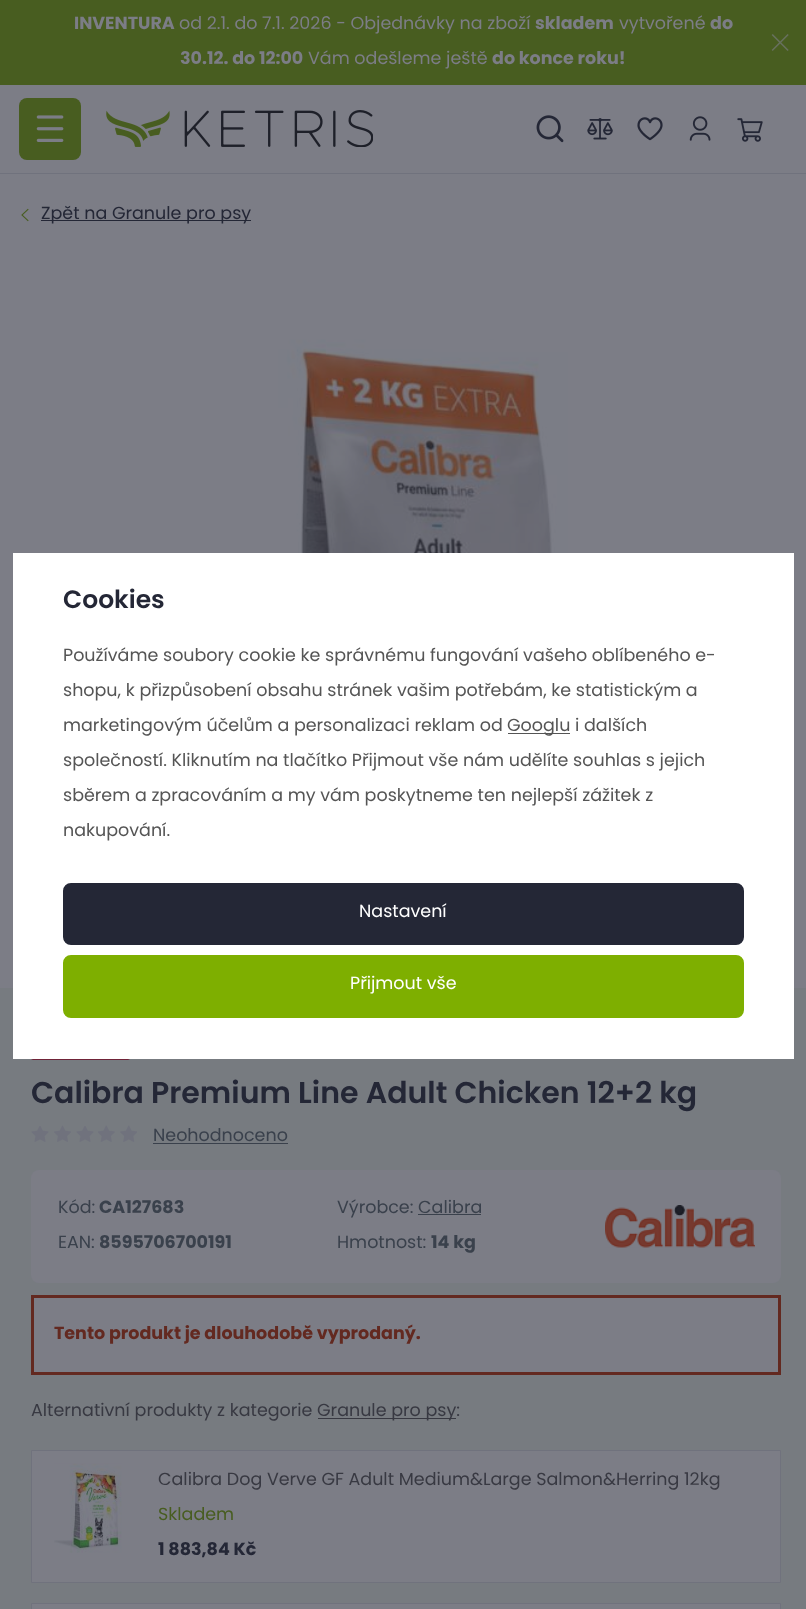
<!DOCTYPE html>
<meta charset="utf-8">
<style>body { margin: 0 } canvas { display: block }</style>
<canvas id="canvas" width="806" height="1609"></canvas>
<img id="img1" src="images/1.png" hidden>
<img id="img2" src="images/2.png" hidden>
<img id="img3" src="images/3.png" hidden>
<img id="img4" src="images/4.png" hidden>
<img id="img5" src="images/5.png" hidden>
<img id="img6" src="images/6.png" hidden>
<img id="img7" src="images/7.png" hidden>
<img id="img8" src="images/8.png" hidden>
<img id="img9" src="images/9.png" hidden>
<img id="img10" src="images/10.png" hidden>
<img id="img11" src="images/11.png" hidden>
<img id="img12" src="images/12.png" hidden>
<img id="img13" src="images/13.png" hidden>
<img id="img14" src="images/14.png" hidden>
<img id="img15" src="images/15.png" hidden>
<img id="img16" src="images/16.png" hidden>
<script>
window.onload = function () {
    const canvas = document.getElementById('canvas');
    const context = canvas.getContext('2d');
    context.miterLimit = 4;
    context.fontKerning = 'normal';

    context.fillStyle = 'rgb(124, 125, 134)';
    context.fillRect(0, 0, 806, 1609);
    context.fillStyle = 'rgb(72, 93, 32)';
    context.fillRect(0, 0, 806, 85);
    context.drawImage(document.getElementById('img1'), 771, 34, 18, 17);
    context.beginPath();
    context.roundRect(19, 98, 62, 62, 8);
    context.fill();
    context.drawImage(document.getElementById('img2'), 36, 115, 28, 27);
    context.drawImage(document.getElementById('img3'), 106, 110, 267, 37);
    context.drawImage(document.getElementById('img4'), 536, 115, 28, 28);
    context.drawImage(document.getElementById('img5'), 587, 118, 26, 22);
    context.drawImage(document.getElementById('img6'), 637, 117, 26, 24);
    context.drawImage(document.getElementById('img7'), 689, 116, 22, 25);
    context.drawImage(document.getElementById('img8'), 737, 118, 26, 24);
    context.fillStyle = 'rgb(112, 114, 125)';
    context.fillRect(0, 173, 806, 1);
    context.drawImage(document.getElementById('img9'), 21, 208, 8, 14);
    context.fillStyle = 'rgb(36, 39, 54)';
    context.fillRect(41, 220, 210, 1);
    context.drawImage(document.getElementById('img10'), 278, 339, 290, 214);
    context.fillStyle = 'rgb(119, 123, 128)';
    context.fillRect(0, 988, 806, 621);
    context.fillStyle = 'rgb(112, 35, 56)';
    context.beginPath();
    context.roundRect(31, 1031, 99, 29, 2.5);
    context.fill();
    context.drawImage(document.getElementById('img11'), 31, 1126, 18, 16);
    context.drawImage(document.getElementById('img12'), 54, 1125, 17, 17);
    context.drawImage(document.getElementById('img11'), 76, 1126, 18, 16);
    context.drawImage(document.getElementById('img13'), 98, 1125, 17, 17);
    context.drawImage(document.getElementById('img14'), 120, 1125, 17, 17);
    context.fillStyle = 'rgb(58, 65, 76)';
    context.fillRect(153, 1143, 135, 1);
    context.fillStyle = 'rgb(124, 125, 134)';
    context.beginPath();
    context.roundRect(31, 1170, 750, 113, 8);
    context.fill();
    context.fillStyle = 'rgb(58, 65, 76)';
    context.fillRect(418, 1214, 63, 1);
    context.drawImage(document.getElementById('img15'), 605, 1205, 150, 43);
    context.fillStyle = 'rgb(124, 125, 134)';
    context.beginPath();
    context.rect(32.5, 1296.5, 747, 77);
    context.fill();
    context.strokeStyle = 'rgb(99, 41, 32)';
    context.lineWidth = 3;
    context.stroke();
    context.fillStyle = 'rgb(56, 57, 66)';
    context.fillRect(318, 1418, 138, 1);
    context.fillStyle = 'rgb(124, 125, 134)';
    context.beginPath();
    context.rect(31.5, 1450.5, 749, 132);
    context.fill();
    context.strokeStyle = 'rgb(112, 114, 125)';
    context.lineWidth = 1;
    context.stroke();
    context.drawImage(document.getElementById('img16'), 54, 1463, 68, 90);
    context.beginPath();
    context.rect(31.5, 1603.5, 749, 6);
    context.fill();
    context.stroke();
    context.fillStyle = 'rgb(255, 255, 255)';
    context.fillRect(13, 553, 781, 506);
    context.fillStyle = 'rgb(85, 85, 85)';
    context.fillRect(508, 733, 62, 1);
    context.fillStyle = 'rgb(36, 39, 54)';
    context.beginPath();
    context.roundRect(64.5, 884.5, 678, 59, 6.5);
    context.fill();
    context.strokeStyle = 'rgb(36, 39, 54)';
    context.lineWidth = 3;
    context.stroke();
    context.fillStyle = 'rgb(126, 175, 0)';
    context.beginPath();
    context.roundRect(64.5, 956.5, 678, 60, 6.5);
    context.fill();
    context.strokeStyle = 'rgb(126, 175, 0)';
    context.stroke();
    context.font = 'bold 17.5px Poppins';
    context.fillStyle = 'rgb(124, 125, 134)';
    context.fillText('INVENTURA', 74, 29);
    context.font = '17.5px Poppins';
    context.fillText('od 2.1. do 7.1. 2026 - Objednávky na zboží', 179, 29);
    context.font = 'bold 17.5px Poppins';
    context.fillText('skladem', 535, 29);
    context.font = '17.5px Poppins';
    context.fillText('vytvořené', 619, 29);
    context.font = 'bold 17.5px Poppins';
    context.fillText('do', 710, 29);
    context.fillText('30.12. do 12:00', 180, 64);
    context.font = '17.5px Poppins';
    context.fillText('Vám odešleme ještě', 308, 64);
    context.font = 'bold 17.5px Poppins';
    context.fillText('do konce roku!', 492, 64);
    context.font = '17.5px Poppins';
    context.fillStyle = 'rgb(36, 39, 54)';
    context.fillText('Zpět na Granule pro psy', 41, 219);
    context.font = '600 30px Poppins';
    context.fillText('Calibra Premium Line Adult Chicken 12+2 kg', 31, 1103);
    context.font = '17.5px Poppins';
    context.fillStyle = 'rgb(58, 65, 76)';
    context.fillText('Neohodnoceno', 153, 1141);
    context.fillText('Kód:', 58, 1213);
    context.font = 'bold 17.5px Poppins';
    context.fillText('CA127683', 99, 1213);
    context.font = '17.5px Poppins';
    context.fillText('EAN:', 58, 1248);
    context.font = 'bold 17.5px Poppins';
    context.fillText('8595706700191', 99, 1248);
    context.font = '17.5px Poppins';
    context.fillText('Výrobce: Calibra', 337, 1213);
    context.fillText('Hmotnost:', 337, 1248);
    context.font = 'bold 17.5px Poppins';
    context.fillText('14 kg', 431, 1248);
    context.fillStyle = 'rgb(99, 41, 32)';
    context.fillText('Tento produkt je dlouhodobě vyprodaný.', 54, 1339);
    context.font = '17.5px Poppins';
    context.fillStyle = 'rgb(56, 57, 66)';
    context.fillText('Alternativní produkty z kategorie', 31, 1416);
    context.fillText('Granule pro psy:', 317, 1416);
    context.fillText('Calibra Dog Verve GF Adult Medium&Large Salmon&Herring 12kg', 158, 1485);
    context.fillStyle = 'rgb(72, 93, 32)';
    context.fillText('Skladem', 158, 1520);
    context.font = 'bold 17.5px Poppins';
    context.fillStyle = 'rgb(36, 39, 54)';
    context.fillText('1 883,84 Kč', 158, 1555);
    context.font = '600 25px Poppins';
    context.fillText('Cookies', 63, 608);
    context.font = '17.5px Poppins';
    context.fillStyle = 'rgb(85, 85, 85)';
    context.fillText('Používáme soubory cookie ke správnému fungování vašeho oblíbeného e-', 63, 661);
    context.fillText('shopu, k přizpůsobení obsahu stránek vašim potřebám, ke statistickým a', 63, 696);
    context.fillText('marketingovým účelům a personalizaci reklam od', 63, 731);
    context.fillText('Googlu i dalších', 507, 731);
    context.fillText('společností. Kliknutím na tlačítko Přijmout vše nám udělíte souhlas s jejich', 63, 766);
    context.fillText('sběrem a zpracováním a my vám poskytneme ten nejlepší zážitek z', 63, 801);
    context.fillText('nakupování.', 63, 836);
    context.fillStyle = 'rgb(255, 255, 255)';
    context.fillText('Nastavení', 359, 917);
    context.fillText('Přijmout vše', 350, 989);
};
</script>
